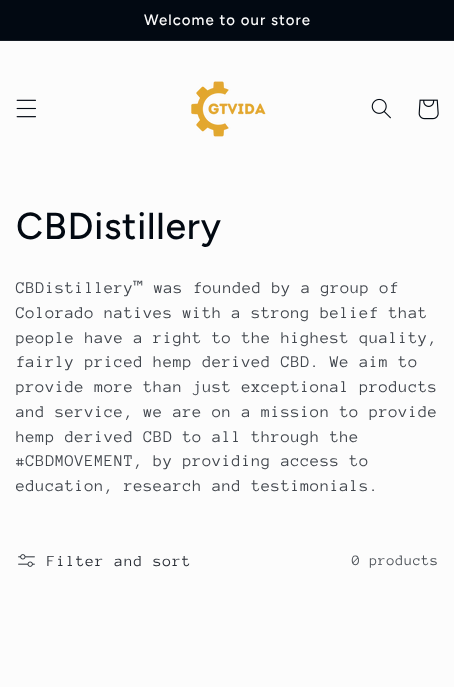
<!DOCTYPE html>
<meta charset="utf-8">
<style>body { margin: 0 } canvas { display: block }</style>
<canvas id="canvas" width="454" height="687"></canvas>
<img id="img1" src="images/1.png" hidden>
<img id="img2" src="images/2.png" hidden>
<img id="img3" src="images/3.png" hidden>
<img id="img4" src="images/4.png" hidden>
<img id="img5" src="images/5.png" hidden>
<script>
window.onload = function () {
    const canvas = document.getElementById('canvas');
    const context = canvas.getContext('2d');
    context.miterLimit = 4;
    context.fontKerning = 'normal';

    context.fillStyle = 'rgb(252, 252, 252)';
    context.fillRect(0, 0, 454, 687);
    context.fillStyle = 'rgb(2, 9, 18)';
    context.fillRect(0, 0, 454, 40);
    context.fillStyle = 'rgb(22, 28, 37)';
    context.fillRect(0, 40, 454, 1);
    context.drawImage(document.getElementById('img1'), 16, 99, 20, 19);
    context.drawImage(document.getElementById('img2'), 191, 81, 75, 56);
    context.drawImage(document.getElementById('img3'), 371, 98, 20, 21);
    context.drawImage(document.getElementById('img4'), 418, 99, 21, 21);
    context.drawImage(document.getElementById('img5'), 18, 554, 17, 13);
    context.letterSpacing = '1.05px';
    context.font = '500 15px Figtree';
    context.fillStyle = 'rgb(252, 252, 252)';
    context.fillText('Welcome to our store', 144, 25);
    context.letterSpacing = '0.75px';
    context.font = '500 37.5px Figtree';
    context.fillStyle = 'rgb(2, 9, 18)';
    context.fillText('CBDistillery', 16, 239);
    context.letterSpacing = '0.65px';
    context.font = '16.8px Anonymous Pro';
    context.fillStyle = 'rgb(65, 70, 77)';
    context.fillText('CBDistillery', 16, 293);
    context.font = '16.8px DejaVu Sans Mono';
    context.fillText('™', 133, 293);
    context.font = '16.8px Anonymous Pro';
    context.fillText('was founded by a group of', 154, 293);
    context.fillText('Colorado natives with a strong belief that', 16, 318);
    context.fillText('people have a right to the highest quality,', 16, 343);
    context.fillText('fairly priced hemp derived CBD. We aim to', 16, 367);
    context.fillText('provide more than just exceptional products', 16, 392);
    context.fillText('and service, we are on a mission to provide', 16, 417);
    context.fillText('hemp derived CBD to all through the', 16, 442);
    context.fillText('#CBDMOVEMENT, by providing access to', 16, 466);
    context.fillText('education, research and testimonials.', 16, 491);
    context.letterSpacing = '1.05px';
    context.font = '15.75px Anonymous Pro';
    context.fillStyle = 'rgb(40, 45, 53)';
    context.fillText('Filter and sort', 47, 566);
    context.letterSpacing = '0.65px';
    context.font = '14.75px Anonymous Pro';
    context.fillStyle = 'rgb(77, 82, 88)';
    context.fillText('0 products', 352, 565);
};
</script>
